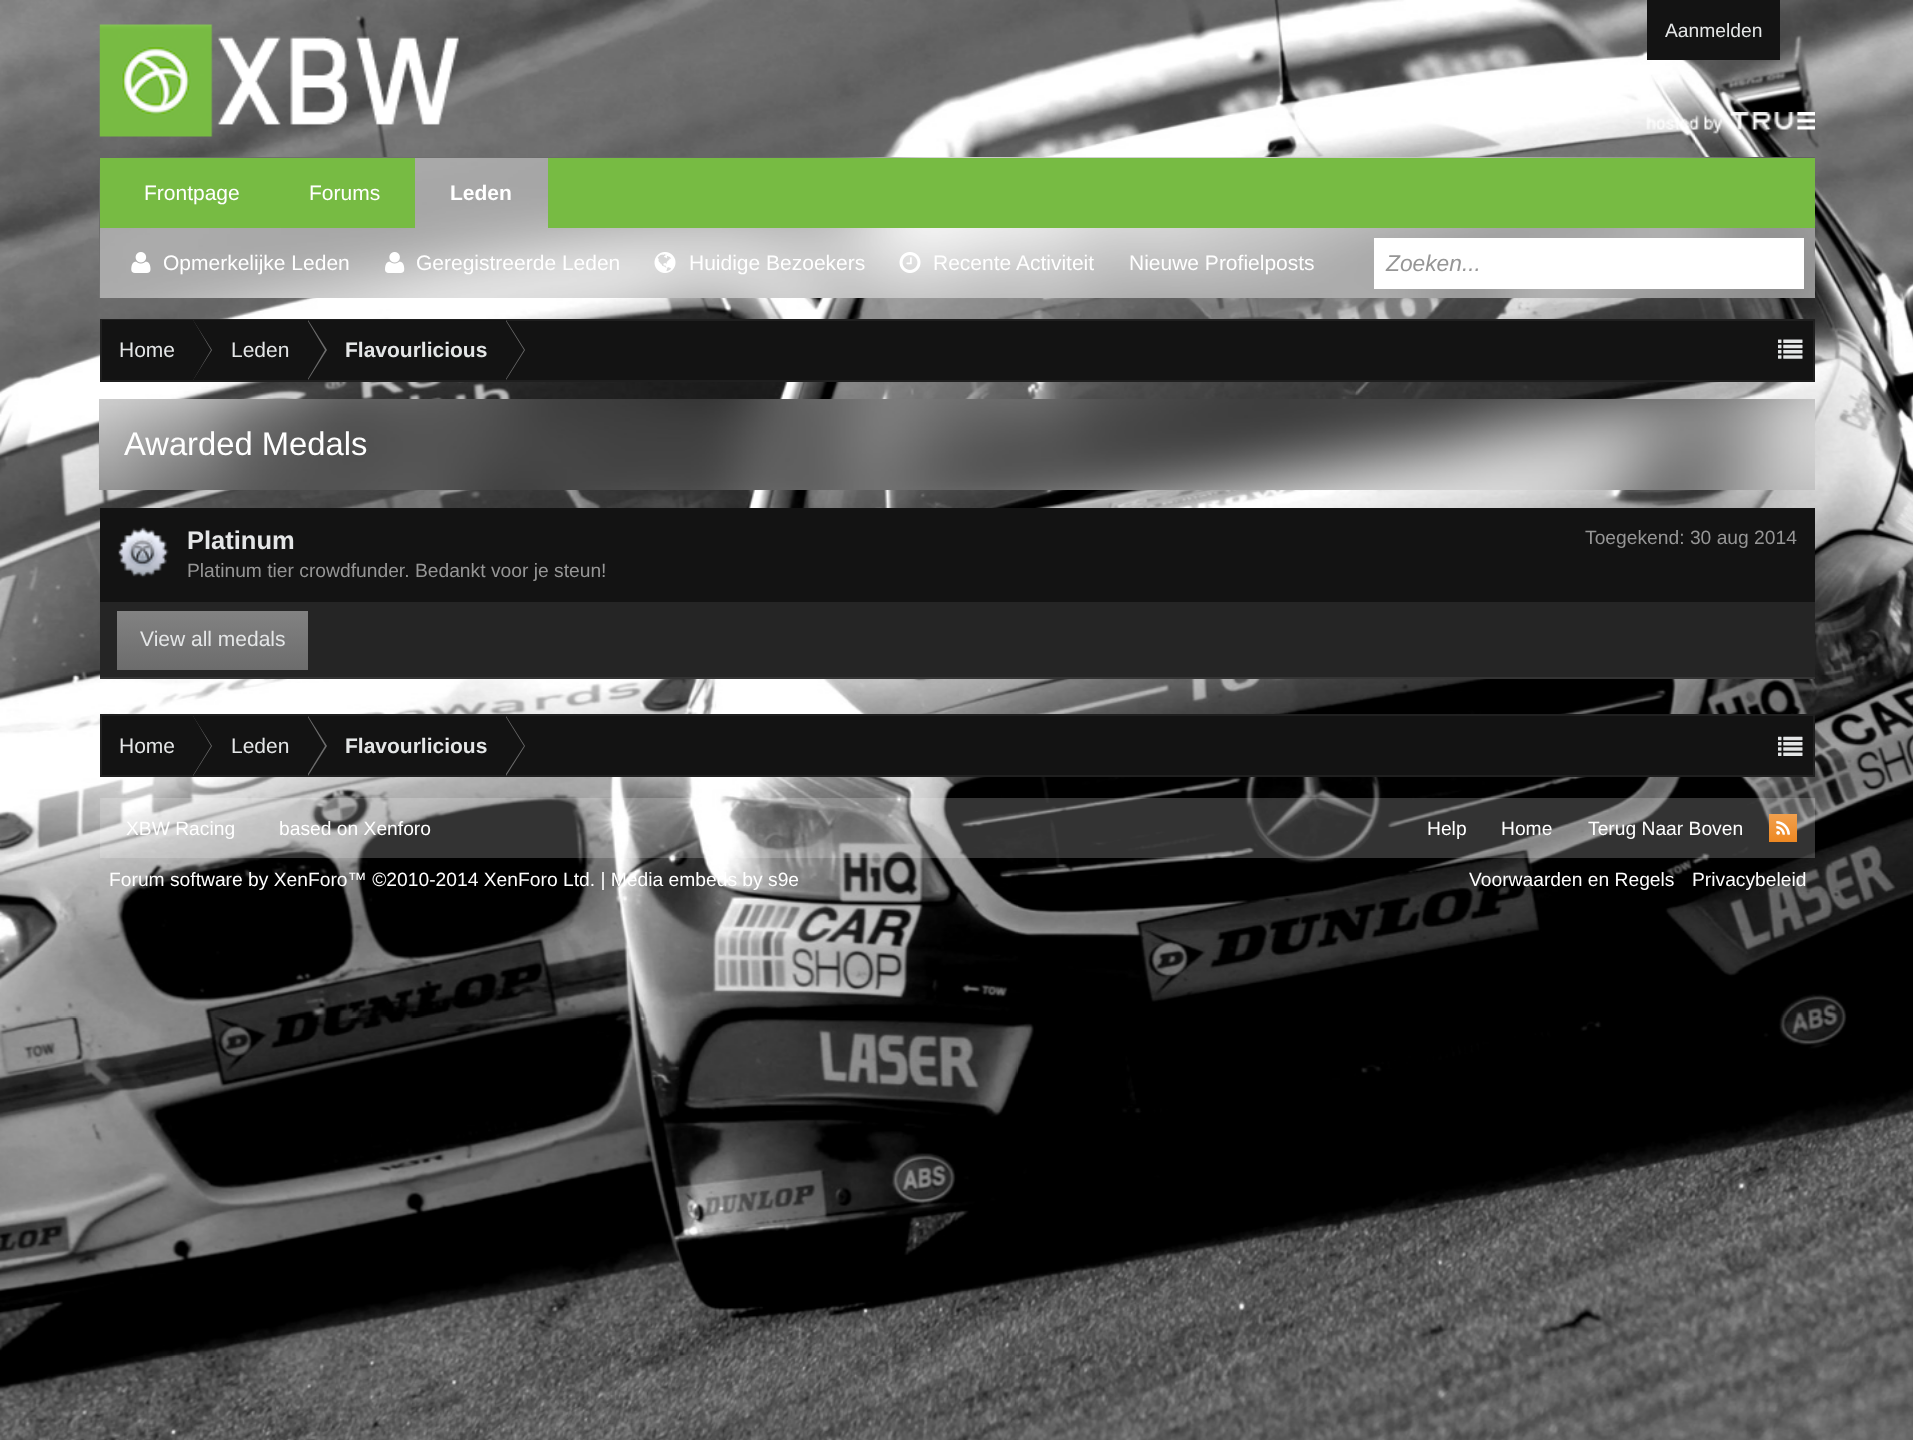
<!DOCTYPE html>
<meta charset="utf-8">
<style>body { margin: 0 } canvas { display: block }</style>
<canvas id="canvas" width="1913" height="1440"></canvas>
<img id="img1" src="images/1.png" hidden>
<img id="img2" src="images/2.png" hidden>
<img id="img3" src="images/3.png" hidden>
<img id="img4" src="images/4.png" hidden>
<img id="img5" src="images/5.png" hidden>
<img id="img6" src="images/6.png" hidden>
<img id="img7" src="images/7.png" hidden>
<img id="img8" src="images/8.png" hidden>
<img id="img9" src="images/9.png" hidden>
<img id="img10" src="images/10.png" hidden>
<img id="img11" src="images/11.png" hidden>
<img id="img12" src="images/12.png" hidden>
<img id="img13" src="images/13.png" hidden>
<img id="img14" src="images/14.png" hidden>
<script>
window.onload = function () {
    const canvas = document.getElementById('canvas');
    const context = canvas.getContext('2d');
    context.miterLimit = 4;
    context.fontKerning = 'normal';
    let gradient;

    context.fillStyle = 'rgb(255, 255, 255)';
    context.fillRect(0, 0, 1913, 1440);
    context.drawImage(document.getElementById('img1'), 0, 0, 1913, 1440);
    context.fillStyle = 'rgb(19, 19, 19)';
    context.fillRect(1647, 0, 133, 60);
    context.drawImage(document.getElementById('img2'), 99, 24, 360, 113);
    context.drawImage(document.getElementById('img3'), 1646, 112, 169, 22);
    context.drawImage(document.getElementById('img4'), 99, 157, 1716, 141);
    context.fillStyle = 'rgb(119, 187, 67)';
    context.fillRect(100, 158, 1715, 70);
    context.drawImage(document.getElementById('img5'), 415, 158, 133, 70);
    context.fillStyle = 'rgba(255, 255, 255, 0.4)';
    context.fillRect(100, 228, 1715, 70);
    context.drawImage(document.getElementById('img6'), 131, 252, 20, 21);
    context.drawImage(document.getElementById('img7'), 385, 252, 20, 21);
    context.drawImage(document.getElementById('img8'), 654, 252, 22, 21);
    context.drawImage(document.getElementById('img9'), 899, 252, 22, 21);
    context.fillStyle = 'rgb(255, 255, 255)';
    context.fillRect(1374, 238, 430, 51);
    context.fillStyle = 'rgb(19, 19, 19)';
    context.fillRect(506, 321, 1307, 59);
    context.strokeStyle = 'rgb(31, 31, 31)';
    context.lineWidth = 2;
    context.strokeRect(101, 320, 1713, 61);
    context.fillRect(102, 320, 90, 60);
    context.fillRect(193, 320, 113, 60);
    context.fillStyle = 'rgb(108, 108, 108)';
    context.beginPath();
    context.moveTo(193, 380);
    context.lineTo(193, 320);
    context.lineTo(212, 350);
    context.closePath();
    context.fill();
    context.save();
    context.beginPath();
    context.rect(102, 320, 1711, 60);
    context.clip();
    context.fillStyle = 'rgb(19, 19, 19)';
    context.beginPath();
    context.moveTo(192, 382);
    context.lineTo(192, 318);
    context.lineTo(211, 350);
    context.closePath();
    context.fill();
    context.restore();
    context.fillStyle = 'rgb(19, 19, 19)';
    context.fillRect(307, 320, 199, 60);
    context.fillStyle = 'rgb(108, 108, 108)';
    context.beginPath();
    context.moveTo(308, 380);
    context.lineTo(308, 320);
    context.lineTo(327, 350);
    context.closePath();
    context.fill();
    context.save();
    context.beginPath();
    context.rect(102, 320, 1711, 60);
    context.clip();
    context.fillStyle = 'rgb(19, 19, 19)';
    context.beginPath();
    context.moveTo(306, 382);
    context.lineTo(306, 318);
    context.lineTo(325, 350);
    context.closePath();
    context.fill();
    context.restore();
    context.beginPath();
    context.moveTo(506, 380);
    context.lineTo(506, 320);
    context.lineTo(525, 350);
    context.closePath();
    context.fill();
    context.save();
    context.beginPath();
    context.rect(102, 320, 1711, 60);
    context.clip();
    context.fillStyle = 'rgb(19, 19, 19)';
    context.beginPath();
    context.moveTo(504, 382);
    context.lineTo(504, 318);
    context.lineTo(524, 350);
    context.closePath();
    context.fill();
    context.restore();
    context.drawImage(document.getElementById('img10'), 1778, 339, 25, 20);
    context.drawImage(document.getElementById('img11'), 99, 399, 1716, 91);
    context.fillStyle = 'rgb(19, 19, 19)';
    context.fillRect(100, 508, 1715, 94);
    context.fillStyle = 'rgb(37, 37, 37)';
    context.fillRect(100, 602, 1715, 75);
    context.drawImage(document.getElementById('img12'), 118, 526, 51, 52);
    context.fillStyle = 'rgb(52, 52, 52)';
    context.fillRect(100, 677, 1715, 2);
    gradient = context.createLinearGradient(213, 611, 213, 670);
    gradient.addColorStop(0, 'rgb(130, 130, 130)');
    gradient.addColorStop(1, 'rgb(108, 108, 108)');
    context.fillStyle = gradient;
    context.fillRect(117, 611, 191, 59);
    context.fillStyle = 'rgb(19, 19, 19)';
    context.beginPath();
    context.rect(101, 715, 1713, 61);
    context.fill();
    context.stroke();
    context.fillStyle = 'rgb(108, 108, 108)';
    context.beginPath();
    context.moveTo(193, 776);
    context.lineTo(193, 716);
    context.lineTo(212, 746);
    context.closePath();
    context.fill();
    context.save();
    context.beginPath();
    context.rect(102, 716, 1711, 59);
    context.clip();
    context.fillStyle = 'rgb(19, 19, 19)';
    context.beginPath();
    context.moveTo(192, 777);
    context.lineTo(192, 714);
    context.lineTo(211, 746);
    context.closePath();
    context.fill();
    context.restore();
    context.beginPath();
    context.moveTo(308, 776);
    context.lineTo(308, 716);
    context.lineTo(327, 746);
    context.closePath();
    context.fill();
    context.save();
    context.beginPath();
    context.rect(102, 716, 1711, 59);
    context.clip();
    context.fillStyle = 'rgb(19, 19, 19)';
    context.beginPath();
    context.moveTo(306, 777);
    context.lineTo(306, 714);
    context.lineTo(325, 746);
    context.closePath();
    context.fill();
    context.restore();
    context.beginPath();
    context.moveTo(506, 776);
    context.lineTo(506, 716);
    context.lineTo(525, 746);
    context.closePath();
    context.fill();
    context.save();
    context.beginPath();
    context.rect(102, 716, 1711, 59);
    context.clip();
    context.fillStyle = 'rgb(19, 19, 19)';
    context.beginPath();
    context.moveTo(504, 777);
    context.lineTo(504, 714);
    context.lineTo(524, 746);
    context.closePath();
    context.fill();
    context.restore();
    context.drawImage(document.getElementById('img13'), 1778, 736, 25, 20);
    context.fillStyle = 'rgba(255, 255, 255, 0.2)';
    context.fillRect(100, 798, 1715, 60);
    gradient = context.createLinearGradient(1783, 814, 1783, 842);
    gradient.addColorStop(0, 'rgb(241, 160, 78)');
    gradient.addColorStop(1, 'rgb(238, 136, 34)');
    context.fillStyle = gradient;
    context.fillRect(1769, 814, 28, 28);
    context.drawImage(document.getElementById('img14'), 1776, 821, 14, 14);
    context.font = '19.25px Liberation Sans';
    context.fillStyle = 'rgb(228, 230, 231)';
    context.fillText('Aanmelden', 1665, 37);
    context.font = 'bold 21px Liberation Sans';
    context.fillStyle = 'rgb(255, 255, 255)';
    context.fillText('Leden', 450, 200);
    context.font = '21px Liberation Sans';
    context.fillText('Opmerkelijke Leden', 163, 270);
    context.fillText('Geregistreerde Leden', 416, 270);
    context.fillText('Huidige Bezoekers', 689, 270);
    context.fillText('Recente Activiteit', 933, 270);
    context.fillText('Nieuwe Profielposts', 1129, 270);
    context.fillText('Frontpage', 144, 200);
    context.fillText('Forums', 309, 200);
    context.font = 'italic 22.75px Liberation Sans';
    context.fillStyle = 'rgb(150, 150, 150)';
    context.fillText('Zoeken...', 1386, 271);
    context.font = '21px Liberation Sans';
    context.fillStyle = 'rgb(228, 230, 231)';
    context.fillText('Home', 119, 357);
    context.fillText('Leden', 231, 357);
    context.font = 'bold 21px Liberation Sans';
    context.fillText('Flavourlicious', 345, 357);
    context.font = '32.75px Liberation Sans';
    context.fillStyle = 'rgb(255, 255, 255)';
    context.fillText('Awarded Medals', 124, 455);
    context.font = 'bold 25.5px Liberation Sans';
    context.fillStyle = 'rgb(228, 230, 231)';
    context.fillText('Platinum', 187, 549);
    context.font = '19.25px Liberation Sans';
    context.fillStyle = 'rgb(150, 150, 150)';
    context.fillText('Platinum tier crowdfunder. Bedankt voor je steun!', 187, 577);
    context.fillText('Toegekend: 30 aug 2014', 1585, 544);
    context.font = '21px Liberation Sans';
    context.fillStyle = 'rgb(228, 230, 231)';
    context.fillText('View all medals', 140, 646);
    context.fillText('Home', 119, 753);
    context.fillText('Leden', 231, 753);
    context.font = 'bold 21px Liberation Sans';
    context.fillText('Flavourlicious', 345, 753);
    context.font = '19.25px Liberation Sans';
    context.fillStyle = 'rgb(255, 255, 255)';
    context.fillText('XBW Racing', 126, 835);
    context.fillText('based on Xenforo', 279, 835);
    context.fillText('Help', 1427, 835);
    context.fillText('Home', 1501, 835);
    context.fillText('Terug Naar Boven', 1588, 835);
    context.fillText('Forum software by XenForo™ ©2010-2014 XenForo Ltd. | Media embeds by s9e', 109, 886);
    context.fillText('Voorwaarden en Regels', 1469, 886);
    context.fillText('Privacybeleid', 1692, 886);
};
</script>
